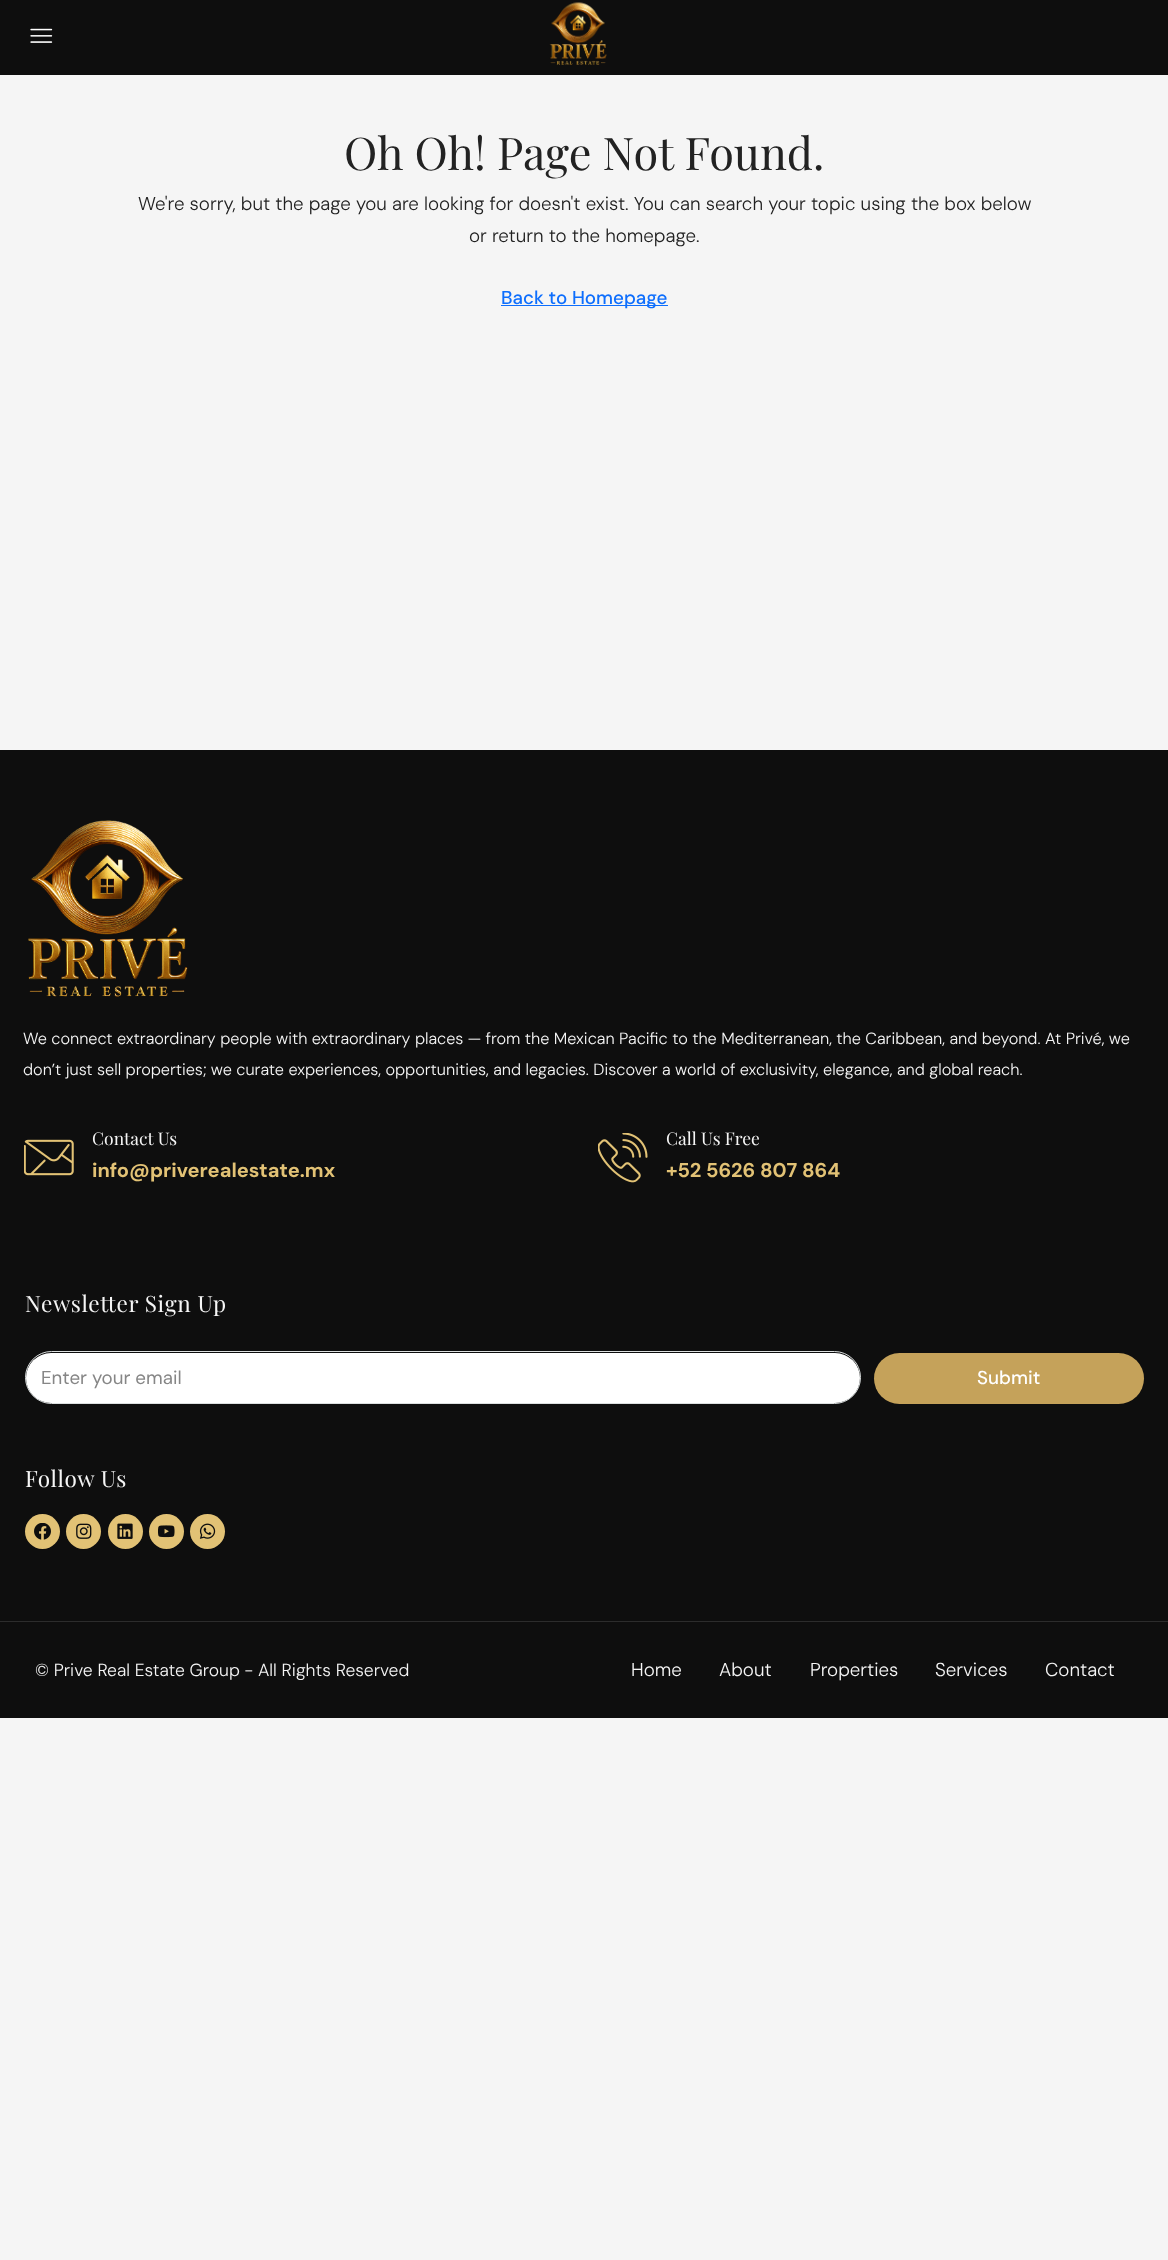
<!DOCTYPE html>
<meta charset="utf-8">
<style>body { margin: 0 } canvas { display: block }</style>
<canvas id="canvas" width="1168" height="2260"></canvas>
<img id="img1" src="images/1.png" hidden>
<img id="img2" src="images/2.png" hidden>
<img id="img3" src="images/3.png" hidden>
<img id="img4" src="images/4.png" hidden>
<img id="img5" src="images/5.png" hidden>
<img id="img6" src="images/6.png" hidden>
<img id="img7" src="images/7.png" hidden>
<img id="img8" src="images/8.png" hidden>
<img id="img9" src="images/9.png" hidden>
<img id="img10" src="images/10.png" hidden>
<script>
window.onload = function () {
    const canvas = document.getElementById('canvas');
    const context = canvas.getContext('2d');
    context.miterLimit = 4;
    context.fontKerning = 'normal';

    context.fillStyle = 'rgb(245, 245, 245)';
    context.fillRect(0, 0, 1168, 2260);
    context.fillStyle = 'rgb(14, 14, 14)';
    context.fillRect(0, 0, 1168, 75);
    context.drawImage(document.getElementById('img1'), 30, 28, 23, 15);
    context.drawImage(document.getElementById('img2'), 549, 2, 58, 63);
    context.fillStyle = 'rgb(13, 110, 253)';
    context.fillRect(501, 305, 167, 1);
    context.fillStyle = 'rgb(14, 14, 14)';
    context.fillRect(0, 750, 1168, 871);
    context.drawImage(document.getElementById('img3'), 28, 820, 160, 177);
    context.drawImage(document.getElementById('img4'), 24, 1139, 50, 37);
    context.drawImage(document.getElementById('img5'), 598, 1133, 50, 50);
    context.fillStyle = 'rgb(255, 255, 255)';
    context.beginPath();
    context.roundRect(26, 1353, 834, 50, 25);
    context.fill();
    context.beginPath();
    context.roundRect(25.5, 1351.5, 835, 52, 26);
    context.strokeStyle = 'rgb(220, 224, 224)';
    context.stroke();
    context.fillStyle = 'rgb(197, 162, 90)';
    context.beginPath();
    context.roundRect(874, 1353, 270, 51, 25.5);
    context.fill();
    context.fillStyle = 'rgb(226, 194, 117)';
    context.beginPath();
    context.arc(42.5, 1531.5, 17.5, 0, 2 * Math.PI);
    context.fill();
    context.drawImage(document.getElementById('img6'), 34, 1523, 17, 17);
    context.beginPath();
    context.arc(83.5, 1531.5, 17.5, 0, 2 * Math.PI);
    context.fill();
    context.drawImage(document.getElementById('img7'), 76, 1523, 16, 16);
    context.beginPath();
    context.arc(125.5, 1531.5, 17.5, 0, 2 * Math.PI);
    context.fill();
    context.drawImage(document.getElementById('img8'), 117, 1523, 16, 16);
    context.beginPath();
    context.arc(166.5, 1531.5, 17.5, 0, 2 * Math.PI);
    context.fill();
    context.drawImage(document.getElementById('img9'), 158, 1525, 17, 13);
    context.beginPath();
    context.arc(207.5, 1531.5, 17.5, 0, 2 * Math.PI);
    context.fill();
    context.drawImage(document.getElementById('img10'), 199, 1523, 17, 16);
    context.fillStyle = 'rgb(14, 14, 14)';
    context.fillRect(0, 1622, 1168, 96);
    context.fillStyle = 'rgb(44, 44, 44)';
    context.fillRect(0, 1621, 1168, 1);
    context.font = '45px Playfair Display';
    context.fillStyle = 'rgb(34, 34, 34)';
    context.fillText('Oh Oh! Page Not Found.', 344, 170);
    context.font = '300 18.75px DM Sans';
    context.fillText('We\'re sorry, but the page you are looking for doesn\'t exist. You can search your topic using the box below', 138, 210);
    context.fillText('or return to the homepage.', 469, 242);
    context.font = '500 18.75px DM Sans';
    context.fillStyle = 'rgb(13, 110, 253)';
    context.fillText('Back to Homepage', 501, 304);
    context.font = '300 16.25px DM Sans';
    context.fillStyle = 'rgb(245, 245, 245)';
    context.fillText('We connect extraordinary people with extraordinary places — from the Mexican Pacific to the Mediterranean, the Caribbean, and beyond. At Privé, we', 23, 1044);
    context.fillText('don’t just sell properties; we curate experiences, opportunities, and legacies. Discover a world of exclusivity, elegance, and global reach.', 23, 1075);
    context.font = '17.5px Playfair Display';
    context.fillText('Contact Us', 92, 1145);
    context.font = 'bold 20px DM Sans';
    context.fillStyle = 'rgb(226, 194, 117)';
    context.fillText('info@priverealestate.mx', 92, 1177);
    context.font = '17.5px Playfair Display';
    context.fillStyle = 'rgb(245, 245, 245)';
    context.fillText('Call Us Free', 666, 1145);
    context.font = 'bold 20px DM Sans';
    context.fillStyle = 'rgb(226, 194, 117)';
    context.fillText('+52 5626 807 864', 666, 1177);
    context.letterSpacing = '0.6px';
    context.font = '22.5px Playfair Display';
    context.fillStyle = 'rgb(245, 245, 245)';
    context.fillText('Newsletter Sign Up', 25, 1312);
    context.letterSpacing = '0px';
    context.font = '18.75px DM Sans';
    context.fillStyle = 'rgb(134, 134, 134)';
    context.fillText('Enter your email', 41, 1384);
    context.font = '500 18.75px DM Sans';
    context.fillStyle = 'rgb(255, 255, 255)';
    context.fillText('Submit', 977, 1384);
    context.letterSpacing = '0.6px';
    context.font = '22.5px Playfair Display';
    context.fillStyle = 'rgb(245, 245, 245)';
    context.fillText('Follow Us', 25, 1487);
    context.letterSpacing = '0px';
    context.font = '300 17.5px DM Sans';
    context.fillText('© Prive Real Estate Group - All Rights Reserved', 35, 1676);
    context.font = '300 18.75px DM Sans';
    context.fillText('Home', 631, 1676);
    context.fillText('About', 719, 1676);
    context.fillText('Properties', 810, 1676);
    context.fillText('Services', 935, 1676);
    context.fillText('Contact', 1045, 1676);
};
</script>
